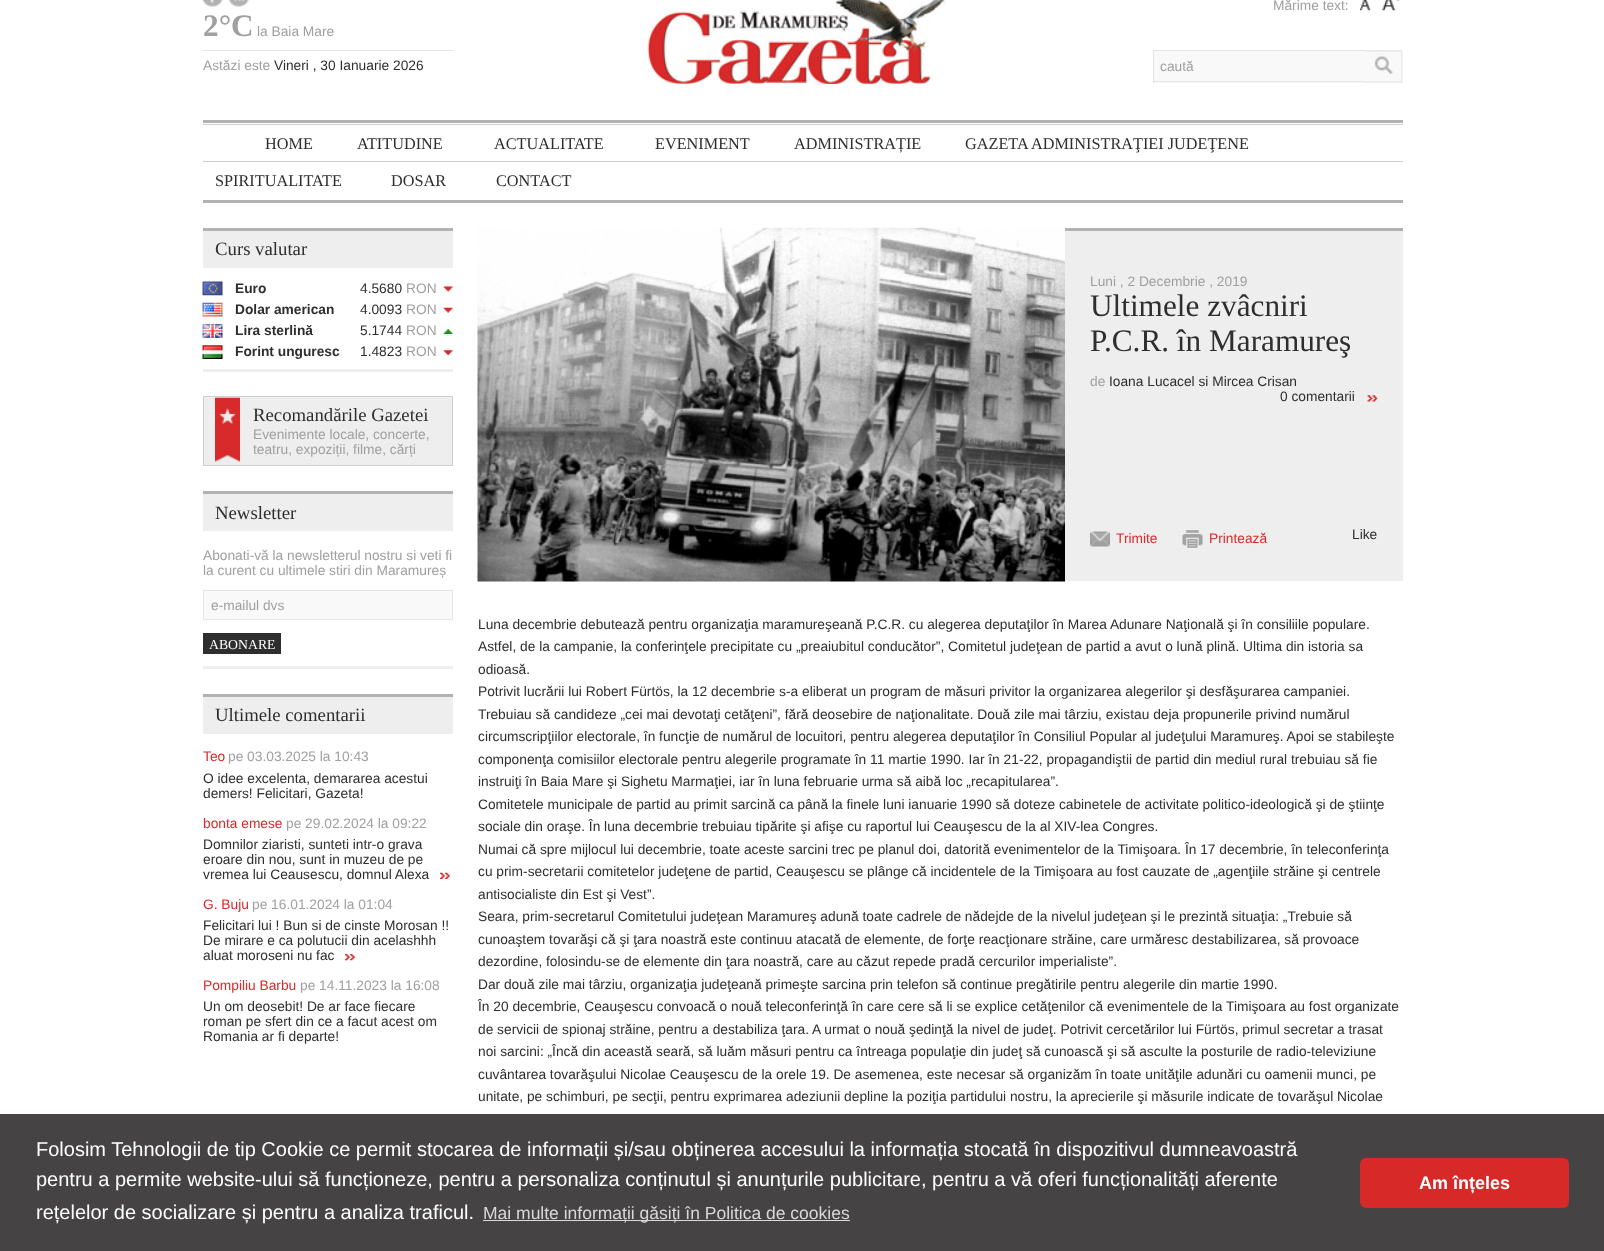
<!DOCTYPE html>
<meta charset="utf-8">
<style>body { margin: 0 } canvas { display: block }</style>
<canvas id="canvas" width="1604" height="1251"></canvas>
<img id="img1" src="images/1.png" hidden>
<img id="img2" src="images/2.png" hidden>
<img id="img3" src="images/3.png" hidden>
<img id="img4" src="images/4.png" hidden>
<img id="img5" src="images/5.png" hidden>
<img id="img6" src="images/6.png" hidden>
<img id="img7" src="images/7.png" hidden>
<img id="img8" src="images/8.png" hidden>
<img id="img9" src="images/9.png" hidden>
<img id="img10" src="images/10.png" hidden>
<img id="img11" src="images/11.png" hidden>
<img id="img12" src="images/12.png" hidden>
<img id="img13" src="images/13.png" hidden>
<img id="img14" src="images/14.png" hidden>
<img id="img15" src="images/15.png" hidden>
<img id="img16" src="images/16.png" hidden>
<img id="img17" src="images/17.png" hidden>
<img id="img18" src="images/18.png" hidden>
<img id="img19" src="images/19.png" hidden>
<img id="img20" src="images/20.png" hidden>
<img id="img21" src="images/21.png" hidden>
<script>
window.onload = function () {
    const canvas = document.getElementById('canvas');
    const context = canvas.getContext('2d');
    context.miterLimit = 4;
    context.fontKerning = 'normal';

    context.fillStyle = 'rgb(255, 255, 255)';
    context.fillRect(0, 0, 1604, 1251);
    context.drawImage(document.getElementById('img1'), 202, 0, 21, 7);
    context.drawImage(document.getElementById('img2'), 228, 0, 21, 7);
    context.fillStyle = 'rgb(229, 229, 229)';
    context.fillRect(203, 50, 250, 1);
    context.drawImage(document.getElementById('img3'), 647, 0, 299, 84);
    context.drawImage(document.getElementById('img4'), 1360, 0, 11, 11);
    context.drawImage(document.getElementById('img5'), 1382, 0, 18, 11);
    context.fillStyle = 'rgb(249, 249, 249)';
    context.fillRect(1154, 51, 211, 32);
    context.fillStyle = 'rgb(229, 229, 229)';
    context.fillRect(1153, 50, 212, 1);
    context.fillRect(1153, 81, 212, 1);
    context.fillRect(1153, 50, 1, 33);
    context.drawImage(document.getElementById('img6'), 1365, 50, 38, 33);
    context.fillStyle = 'rgb(178, 178, 178)';
    context.fillRect(203, 120, 1200, 3);
    context.fillRect(203, 200, 1200, 3);
    context.fillStyle = 'rgb(207, 207, 207)';
    context.fillRect(203, 124, 1200, 1);
    context.fillRect(203, 161, 1200, 1);
    context.fillStyle = 'rgb(238, 238, 238)';
    context.fillRect(203, 231, 250, 37);
    context.fillStyle = 'rgb(178, 178, 178)';
    context.fillRect(203, 228, 250, 3);
    context.fillStyle = 'rgb(238, 238, 238)';
    context.fillRect(203, 369, 250, 3);
    context.drawImage(document.getElementById('img7'), 202, 281, 21, 15);
    context.drawImage(document.getElementById('img8'), 443, 286, 10, 6);
    context.drawImage(document.getElementById('img9'), 202, 302, 21, 15);
    context.drawImage(document.getElementById('img10'), 443, 307, 10, 6);
    context.drawImage(document.getElementById('img11'), 202, 324, 21, 14);
    context.drawImage(document.getElementById('img12'), 443, 329, 10, 5);
    context.drawImage(document.getElementById('img13'), 202, 345, 21, 14);
    context.drawImage(document.getElementById('img14'), 443, 350, 10, 6);
    context.fillRect(204, 397, 248, 68);
    context.drawImage(document.getElementById('img15'), 215, 397, 25, 65);
    context.strokeStyle = 'rgb(207, 207, 207)';
    context.strokeRect(203.5, 396.5, 249, 69);
    context.fillRect(203, 494, 250, 37);
    context.fillStyle = 'rgb(178, 178, 178)';
    context.fillRect(203, 491, 250, 3);
    context.fillStyle = 'rgb(238, 238, 238)';
    context.fillRect(203, 666, 250, 3);
    context.fillStyle = 'rgb(249, 249, 249)';
    context.beginPath();
    context.rect(203.5, 590.5, 249, 29);
    context.fill();
    context.strokeStyle = 'rgb(229, 229, 229)';
    context.stroke();
    context.fillStyle = 'rgb(46, 46, 46)';
    context.fillRect(203, 633, 78, 21);
    context.fillStyle = 'rgb(238, 238, 238)';
    context.fillRect(203, 697, 250, 37);
    context.fillStyle = 'rgb(178, 178, 178)';
    context.fillRect(203, 694, 250, 3);
    context.drawImage(document.getElementById('img16'), 440, 872, 10, 7);
    context.drawImage(document.getElementById('img17'), 345, 954, 10, 7);
    context.drawImage(document.getElementById('img18'), 477, 227, 588, 355);
    context.fillStyle = 'rgb(238, 238, 238)';
    context.fillRect(1065, 231, 338, 350);
    context.fillStyle = 'rgb(178, 178, 178)';
    context.fillRect(1065, 228, 338, 3);
    context.drawImage(document.getElementById('img19'), 1367, 395, 11, 7);
    context.drawImage(document.getElementById('img20'), 1090, 531, 20, 16);
    context.drawImage(document.getElementById('img21'), 1182, 530, 21, 18);
    context.fillStyle = 'rgb(69, 67, 67)';
    context.fillRect(0, 1114, 1604, 137);
    context.fillStyle = 'rgb(218, 217, 217)';
    context.fillRect(483, 1220, 367, 1);
    context.fillStyle = 'rgb(215, 41, 40)';
    context.beginPath();
    context.roundRect(1360, 1158, 209, 50, 6);
    context.fill();
    context.font = 'bold 31.25px Liberation Serif';
    context.fillStyle = 'rgb(160, 160, 160)';
    context.fillText('2°C', 203, 36);
    context.font = '13.75px Liberation Sans';
    context.fillText('la Baia Mare', 257, 36);
    context.fillText('Astăzi este', 203, 70);
    context.fillStyle = 'rgb(46, 46, 46)';
    context.fillText('Vineri , 30 Ianuarie 2026', 274, 70);
    context.fillStyle = 'rgb(160, 160, 160)';
    context.fillText('Mărime text:', 1273, 10);
    context.fillText('caută', 1160, 71);
    context.font = '16.25px Liberation Serif';
    context.fillStyle = 'rgb(46, 46, 46)';
    context.fillText('HOME', 265, 149);
    context.fillText('ATITUDINE', 357, 149);
    context.fillText('ACTUALITATE', 494, 149);
    context.fillText('EVENIMENT', 655, 149);
    context.fillText('ADMINISTRAȚIE', 794, 149);
    context.fillText('GAZETA ADMINISTRAŢIEI JUDEŢENE', 965, 149);
    context.fillText('SPIRITUALITATE', 215, 186);
    context.fillText('DOSAR', 391, 186);
    context.fillText('CONTACT', 496, 186);
    context.font = '18.75px Liberation Serif';
    context.fillText('Curs valutar', 215, 255);
    context.font = 'bold 13.75px Liberation Sans';
    context.fillText('Euro', 235, 293);
    context.font = '13.75px Liberation Sans';
    context.fillText('4.5680', 360, 293);
    context.fillStyle = 'rgb(160, 160, 160)';
    context.fillText('RON', 406, 293);
    context.font = 'bold 13.75px Liberation Sans';
    context.fillStyle = 'rgb(46, 46, 46)';
    context.fillText('Dolar american', 235, 314);
    context.font = '13.75px Liberation Sans';
    context.fillText('4.0093', 360, 314);
    context.fillStyle = 'rgb(160, 160, 160)';
    context.fillText('RON', 406, 314);
    context.font = 'bold 13.75px Liberation Sans';
    context.fillStyle = 'rgb(46, 46, 46)';
    context.fillText('Lira sterlină', 235, 335);
    context.font = '13.75px Liberation Sans';
    context.fillText('5.1744', 360, 335);
    context.fillStyle = 'rgb(160, 160, 160)';
    context.fillText('RON', 406, 335);
    context.font = 'bold 13.75px Liberation Sans';
    context.fillStyle = 'rgb(46, 46, 46)';
    context.fillText('Forint unguresc', 235, 356);
    context.font = '13.75px Liberation Sans';
    context.fillText('1.4823', 360, 356);
    context.fillStyle = 'rgb(160, 160, 160)';
    context.fillText('RON', 406, 356);
    context.font = '18.75px Liberation Serif';
    context.fillStyle = 'rgb(46, 46, 46)';
    context.fillText('Recomandările Gazetei', 253, 421);
    context.font = '13.75px Liberation Sans';
    context.fillStyle = 'rgb(160, 160, 160)';
    context.fillText('Evenimente locale, concerte,', 253, 439);
    context.fillText('teatru, expoziții, filme, cărți', 253, 454);
    context.font = '18.75px Liberation Serif';
    context.fillStyle = 'rgb(46, 46, 46)';
    context.fillText('Newsletter', 215, 519);
    context.font = '13.75px Liberation Sans';
    context.fillStyle = 'rgb(160, 160, 160)';
    context.fillText('Abonati-vă la newsletterul nostru si veti fi', 203, 560);
    context.fillText('la curent cu ultimele stiri din Maramureș', 203, 575);
    context.fillText('e-mailul dvs', 211, 610);
    context.font = '13.75px Liberation Serif';
    context.fillStyle = 'rgb(255, 255, 255)';
    context.fillText('ABONARE', 209, 649);
    context.font = '18.75px Liberation Serif';
    context.fillStyle = 'rgb(46, 46, 46)';
    context.fillText('Ultimele comentarii', 215, 721);
    context.font = '13.75px Liberation Sans';
    context.fillStyle = 'rgb(216, 42, 42)';
    context.fillText('Teo', 203, 761);
    context.fillStyle = 'rgb(160, 160, 160)';
    context.fillText('pe 03.03.2025 la 10:43', 228, 761);
    context.fillStyle = 'rgb(46, 46, 46)';
    context.fillText('O idee excelenta, demararea acestui', 203, 783);
    context.fillText('demers! Felicitari, Gazeta!', 203, 798);
    context.fillStyle = 'rgb(216, 42, 42)';
    context.fillText('bonta emese', 203, 828);
    context.fillStyle = 'rgb(160, 160, 160)';
    context.fillText('pe 29.02.2024 la 09:22', 286, 828);
    context.fillStyle = 'rgb(46, 46, 46)';
    context.fillText('Domnilor ziaristi, sunteti intr-o grava', 203, 849);
    context.fillText('eroare din nou, sunt in muzeu de pe', 203, 864);
    context.fillText('vremea lui Ceausescu, domnul Alexa', 203, 879);
    context.fillStyle = 'rgb(216, 42, 42)';
    context.fillText('G. Buju', 203, 909);
    context.fillStyle = 'rgb(160, 160, 160)';
    context.fillText('pe 16.01.2024 la 01:04', 252, 909);
    context.fillStyle = 'rgb(46, 46, 46)';
    context.fillText('Felicitari lui ! Bun si de cinste Morosan !!', 203, 930);
    context.fillText('De mirare e ca polutucii din acelashhh', 203, 945);
    context.fillText('aluat moroseni nu fac', 203, 960);
    context.fillStyle = 'rgb(216, 42, 42)';
    context.fillText('Pompiliu Barbu', 203, 990);
    context.fillStyle = 'rgb(160, 160, 160)';
    context.fillText('pe 14.11.2023 la 16:08', 300, 990);
    context.fillStyle = 'rgb(46, 46, 46)';
    context.fillText('Un om deosebit! De ar face fiecare', 203, 1011);
    context.fillText('roman pe sfert din ce a facut acest om', 203, 1026);
    context.fillText('Romania ar fi departe!', 203, 1041);
    context.fillStyle = 'rgb(160, 160, 160)';
    context.fillText('Luni , 2 Decembrie , 2019', 1090, 286);
    context.font = '31.25px Liberation Serif';
    context.fillStyle = 'rgb(46, 46, 46)';
    context.fillText('Ultimele zvâcniri', 1090, 316);
    context.fillText('P.C.R. în Maramureş', 1090, 351);
    context.font = '13.75px Liberation Sans';
    context.fillStyle = 'rgb(160, 160, 160)';
    context.fillText('de', 1090, 386);
    context.fillStyle = 'rgb(46, 46, 46)';
    context.fillText('Ioana Lucacel si Mircea Crisan', 1109, 386);
    context.fillText('0 comentarii', 1280, 401);
    context.fillStyle = 'rgb(216, 42, 42)';
    context.fillText('Trimite', 1116, 543);
    context.fillText('Printează', 1209, 543);
    context.fillStyle = 'rgb(46, 46, 46)';
    context.fillText('Like', 1352, 539);
    context.fillText('Luna decembrie debutează pentru organizaţia maramureşeană P.C.R. cu alegerea deputaţilor în Marea Adunare Naţională şi în consiliile populare.', 478, 629);
    context.fillText('Astfel, de la campanie, la conferinţele precipitate cu „preaiubitul conducător”, Comitetul judeţean de partid a avut o lună plină. Ultima din istoria sa', 478, 651);
    context.fillText('odioasă.', 478, 674);
    context.fillText('Potrivit lucrării lui Robert Fürtös, la 12 decembrie s-a eliberat un program de măsuri privitor la organizarea alegerilor şi desfăşurarea campaniei.', 478, 696);
    context.fillText('Trebuiau să candideze „cei mai devotaţi cetăţeni”, fără deosebire de naţionalitate. Două zile mai târziu, existau deja propunerile privind numărul', 478, 719);
    context.fillText('circumscripţiilor electorale, în funcţie de numărul de locuitori, pentru alegerea deputaţilor în Consiliul Popular al judeţului Maramureş. Apoi se stabileşte', 478, 741);
    context.fillText('componenţa comisiilor electorale pentru alegerile programate în 11 martie 1990. Iar în 21-22, propagandiştii de partid din mediul rural trebuiau să fie', 478, 764);
    context.fillText('instruiţi în Baia Mare şi Sighetu Marmaţiei, iar în luna februarie urma să aibă loc „recapitularea”.', 478, 786);
    context.fillText('Comitetele municipale de partid au primit sarcină ca până la finele luni ianuarie 1990 să doteze cabinetele de activitate politico-ideologică şi de ştiinţe', 478, 809);
    context.fillText('sociale din oraşe. În luna decembrie trebuiau tipărite şi afişe cu raportul lui Ceauşescu de la al XIV-lea Congres.', 478, 831);
    context.fillText('Numai că spre mijlocul lui decembrie, toate aceste sarcini trec pe planul doi, datorită evenimentelor de la Timişoara. În 17 decembrie, în teleconferinţa', 478, 854);
    context.fillText('cu prim-secretarii comitetelor judeţene de partid, Ceauşescu se plânge că incidentele de la Timişoara au fost cauzate de „agenţiile străine şi centrele', 478, 876);
    context.fillText('antisocialiste din Est şi Vest”.', 478, 899);
    context.fillText('Seara, prim-secretarul Comitetului judeţean Maramureş adună toate cadrele de nădejde de la nivelul judeţean şi le prezintă situaţia: „Trebuie să', 478, 921);
    context.fillText('cunoaştem tovarăşi că şi ţara noastră este continuu atacată de elemente, de forţe reacţionare străine, care urmăresc destabilizarea, să provoace', 478, 944);
    context.fillText('dezordine, folosindu-se de elemente din ţara noastră, care au căzut repede pradă cercurilor imperialiste”.', 478, 966);
    context.fillText('Dar două zile mai târziu, organizaţia judeţeană primeşte sarcina prin telefon să continue pregătirile pentru alegerile din martie 1990.', 478, 989);
    context.fillText('În 20 decembrie, Ceauşescu convoacă o nouă teleconferinţă în care cere să li se explice cetăţenilor că evenimentele de la Timişoara au fost organizate', 478, 1011);
    context.fillText('de servicii de spionaj străine, pentru a destabiliza ţara. A urmat o nouă şedinţă la nivel de judeţ. Potrivit cercetărilor lui Fürtös, primul secretar a trasat', 478, 1034);
    context.fillText('noi sarcini: „Încă din această seară, să luăm măsuri pentru ca întreaga populaţie din judeţ să cunoască şi să asculte la posturile de radio-televiziune', 478, 1056);
    context.fillText('cuvântarea tovarăşului Nicolae Ceauşescu de la orele 19. De asemenea, este necesar să organizăm în toate unităţile adunări cu oamenii munci, pe', 478, 1079);
    context.fillText('unitate, pe schimburi, pe secţii, pentru exprimarea adeziunii depline la poziţia partidului nostru, la aprecierile şi măsurile indicate de tovarăşul Nicolae', 478, 1101);
    context.font = '20px Liberation Sans';
    context.fillStyle = 'rgb(255, 255, 255)';
    context.fillText('Folosim Tehnologii de tip Cookie ce permit stocarea de informații și/sau obținerea accesului la informația stocată în dispozitivul dumneavoastră', 36, 1156);
    context.fillText('pentru a permite website-ului să funcționeze, pentru a personaliza conținutul și anunțurile publicitare, pentru a vă oferi funcționalități aferente', 36, 1186);
    context.fillText('rețelelor de socializare și pentru a analiza traficul.', 36, 1219);
    context.font = '17.5px Liberation Sans';
    context.fillStyle = 'rgb(218, 217, 217)';
    context.fillText('Mai multe informații găsiți în Politica de cookies', 483, 1219);
    context.font = 'bold 18px Liberation Sans';
    context.fillStyle = 'rgb(255, 255, 255)';
    context.fillText('Am înțeles', 1419, 1189);
};
</script>
